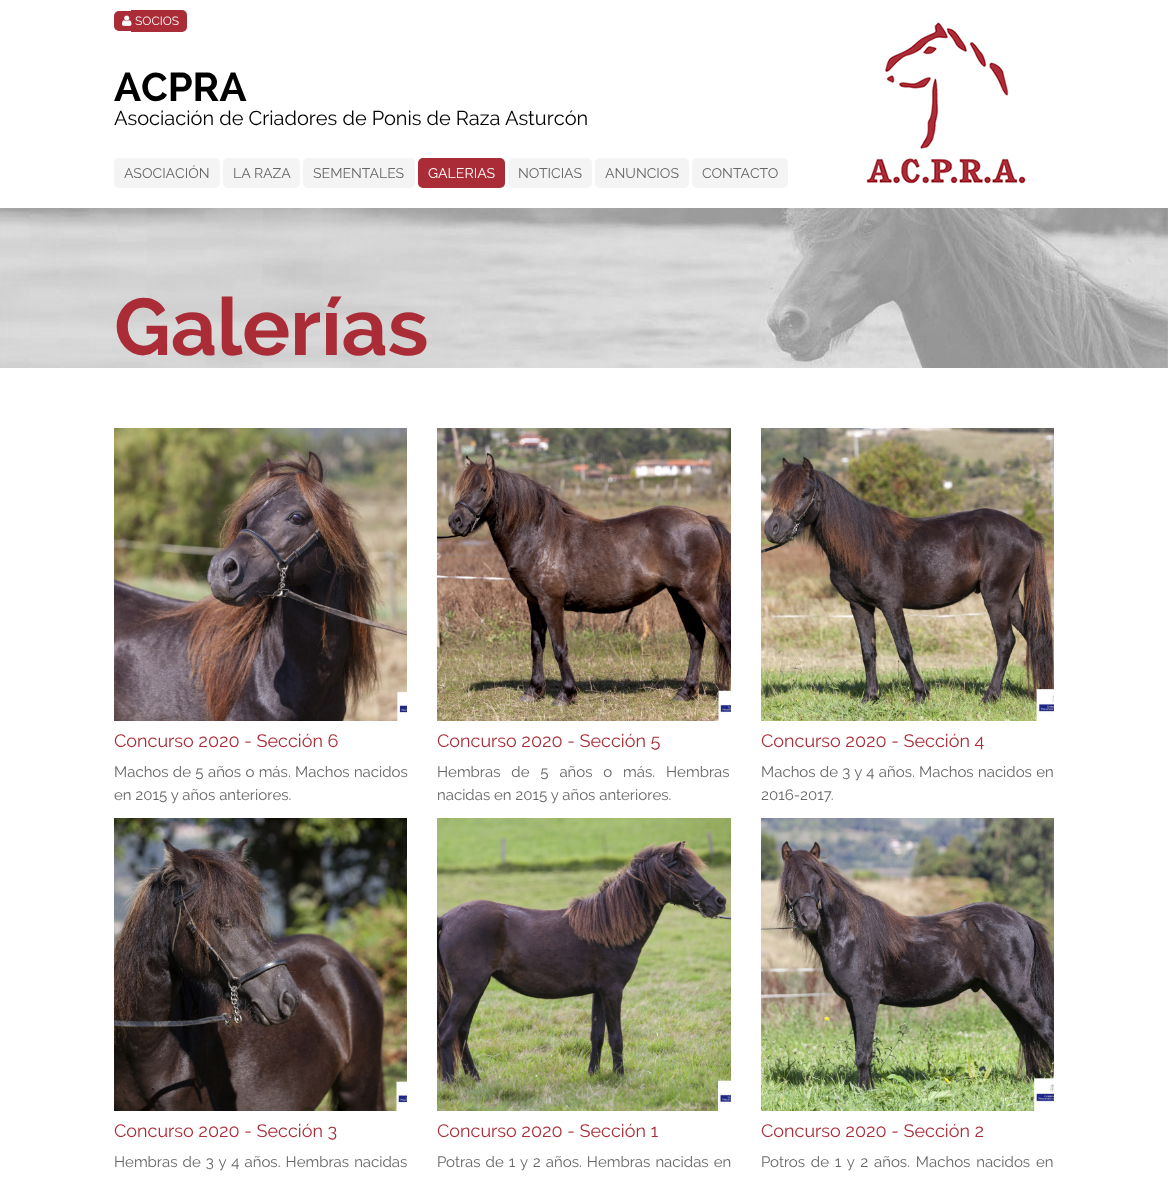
<!DOCTYPE html>
<meta charset="utf-8">
<style>body { margin: 0 } canvas { display: block }</style>
<canvas id="canvas" width="1168" height="1184"></canvas>
<img id="img1" src="images/1.png" hidden>
<img id="img2" src="images/2.png" hidden>
<img id="img3" src="images/3.png" hidden>
<img id="img4" src="images/4.png" hidden>
<img id="img5" src="images/5.png" hidden>
<img id="img6" src="images/6.png" hidden>
<img id="img7" src="images/7.png" hidden>
<img id="img8" src="images/8.png" hidden>
<img id="img9" src="images/9.png" hidden>
<script>
window.onload = function () {
    const canvas = document.getElementById('canvas');
    const context = canvas.getContext('2d');
    context.miterLimit = 4;
    context.fontKerning = 'normal';

    context.fillStyle = 'rgb(255, 255, 255)';
    context.fillRect(0, 0, 1168, 1184);
    context.fillStyle = 'rgb(170, 44, 55)';
    context.beginPath();
    context.roundRect(114, 11, 17, 20, [5, 0, 0, 5]);
    context.fill();
    context.beginPath();
    context.roundRect(131, 10, 56, 22, [0, 5, 5, 0]);
    context.fill();
    context.drawImage(document.getElementById('img1'), 122, 15, 10, 11);
    context.fillStyle = 'rgb(244, 244, 244)';
    context.beginPath();
    context.roundRect(114, 158, 106, 30, 5);
    context.fill();
    context.beginPath();
    context.roundRect(223, 158, 77, 30, 5);
    context.fill();
    context.beginPath();
    context.roundRect(303, 158, 112, 30, 5);
    context.fill();
    context.fillStyle = 'rgb(170, 44, 55)';
    context.beginPath();
    context.roundRect(418, 158, 87, 30, 5);
    context.fill();
    context.fillStyle = 'rgb(244, 244, 244)';
    context.beginPath();
    context.roundRect(508, 158, 84, 30, 5);
    context.fill();
    context.beginPath();
    context.roundRect(595, 158, 94, 30, 5);
    context.fill();
    context.beginPath();
    context.roundRect(692, 158, 96, 30, 5);
    context.fill();
    context.drawImage(document.getElementById('img2'), 866, 22, 160, 162);
    context.drawImage(document.getElementById('img3'), 0, 208, 1168, 160);
    context.drawImage(document.getElementById('img4'), 114, 428, 293, 293);
    context.drawImage(document.getElementById('img5'), 437, 428, 294, 293);
    context.drawImage(document.getElementById('img6'), 761, 428, 293, 293);
    context.drawImage(document.getElementById('img7'), 114, 818, 293, 293);
    context.drawImage(document.getElementById('img8'), 437, 818, 294, 293);
    context.drawImage(document.getElementById('img9'), 761, 818, 293, 293);
    context.font = '12px Raleway';
    context.fillStyle = 'rgb(255, 255, 255)';
    context.fillText('SOCIOS', 135, 25);
    context.font = 'bold 40px Raleway';
    context.fillStyle = 'rgb(0, 0, 0)';
    context.fillText('ACPRA', 114, 101);
    context.font = '20px Raleway';
    context.fillText('Asociación de Criadores de Ponis de Raza Asturcón', 114, 125);
    context.font = '14px Raleway';
    context.fillStyle = 'rgb(102, 102, 102)';
    context.fillText('ASOCIACIÓN', 124, 178);
    context.fillText('LA RAZA', 233, 178);
    context.fillText('SEMENTALES', 313, 178);
    context.fillStyle = 'rgb(255, 255, 255)';
    context.fillText('GALERIAS', 428, 178);
    context.fillStyle = 'rgb(102, 102, 102)';
    context.fillText('NOTICIAS', 518, 178);
    context.fillText('ANUNCIOS', 605, 178);
    context.fillText('CONTACTO', 702, 178);
    context.font = 'bold 80px Raleway';
    context.fillStyle = 'rgb(170, 44, 55)';
    context.fillText('Galerías', 114, 355);
    context.font = '18px Raleway';
    context.fillText('Concurso 2020 - Sección 6', 114, 747);
    context.wordSpacing = '0.5px';
    context.font = '15px Raleway';
    context.fillStyle = 'rgb(102, 102, 102)';
    context.fillText('Machos de 5 años o más. Machos nacidos', 114, 777);
    context.wordSpacing = '0px';
    context.fillText('en 2015 y años anteriores.', 114, 800);
    context.font = '18px Raleway';
    context.fillStyle = 'rgb(170, 44, 55)';
    context.fillText('Concurso 2020 - Sección 5', 437, 747);
    context.wordSpacing = '7px';
    context.font = '15px Raleway';
    context.fillStyle = 'rgb(102, 102, 102)';
    context.fillText('Hembras de 5 años o más. Hembras', 437, 777);
    context.wordSpacing = '0px';
    context.fillText('nacidas en 2015 y años anteriores.', 437, 800);
    context.font = '18px Raleway';
    context.fillStyle = 'rgb(170, 44, 55)';
    context.fillText('Concurso 2020 - Sección 4', 761, 747);
    context.wordSpacing = '0.5px';
    context.font = '15px Raleway';
    context.fillStyle = 'rgb(102, 102, 102)';
    context.fillText('Machos de 3 y 4 años. Machos nacidos en', 761, 777);
    context.wordSpacing = '0px';
    context.fillText('2016-2017.', 761, 800);
    context.font = '18px Raleway';
    context.fillStyle = 'rgb(170, 44, 55)';
    context.fillText('Concurso 2020 - Sección 3', 114, 1137);
    context.wordSpacing = '1.25px';
    context.font = '15px Raleway';
    context.fillStyle = 'rgb(102, 102, 102)';
    context.fillText('Hembras de 3 y 4 años. Hembras nacidas', 114, 1167);
    context.wordSpacing = '0px';
    context.font = '18px Raleway';
    context.fillStyle = 'rgb(170, 44, 55)';
    context.fillText('Concurso 2020 - Sección 1', 437, 1137);
    context.wordSpacing = '1.25px';
    context.font = '15px Raleway';
    context.fillStyle = 'rgb(102, 102, 102)';
    context.fillText('Potras de 1 y 2 años. Hembras nacidas en', 437, 1167);
    context.wordSpacing = '0px';
    context.font = '18px Raleway';
    context.fillStyle = 'rgb(170, 44, 55)';
    context.fillText('Concurso 2020 - Sección 2', 761, 1137);
    context.wordSpacing = '2px';
    context.font = '15px Raleway';
    context.fillStyle = 'rgb(102, 102, 102)';
    context.fillText('Potros de 1 y 2 años. Machos nacidos en', 761, 1167);
};
</script>
